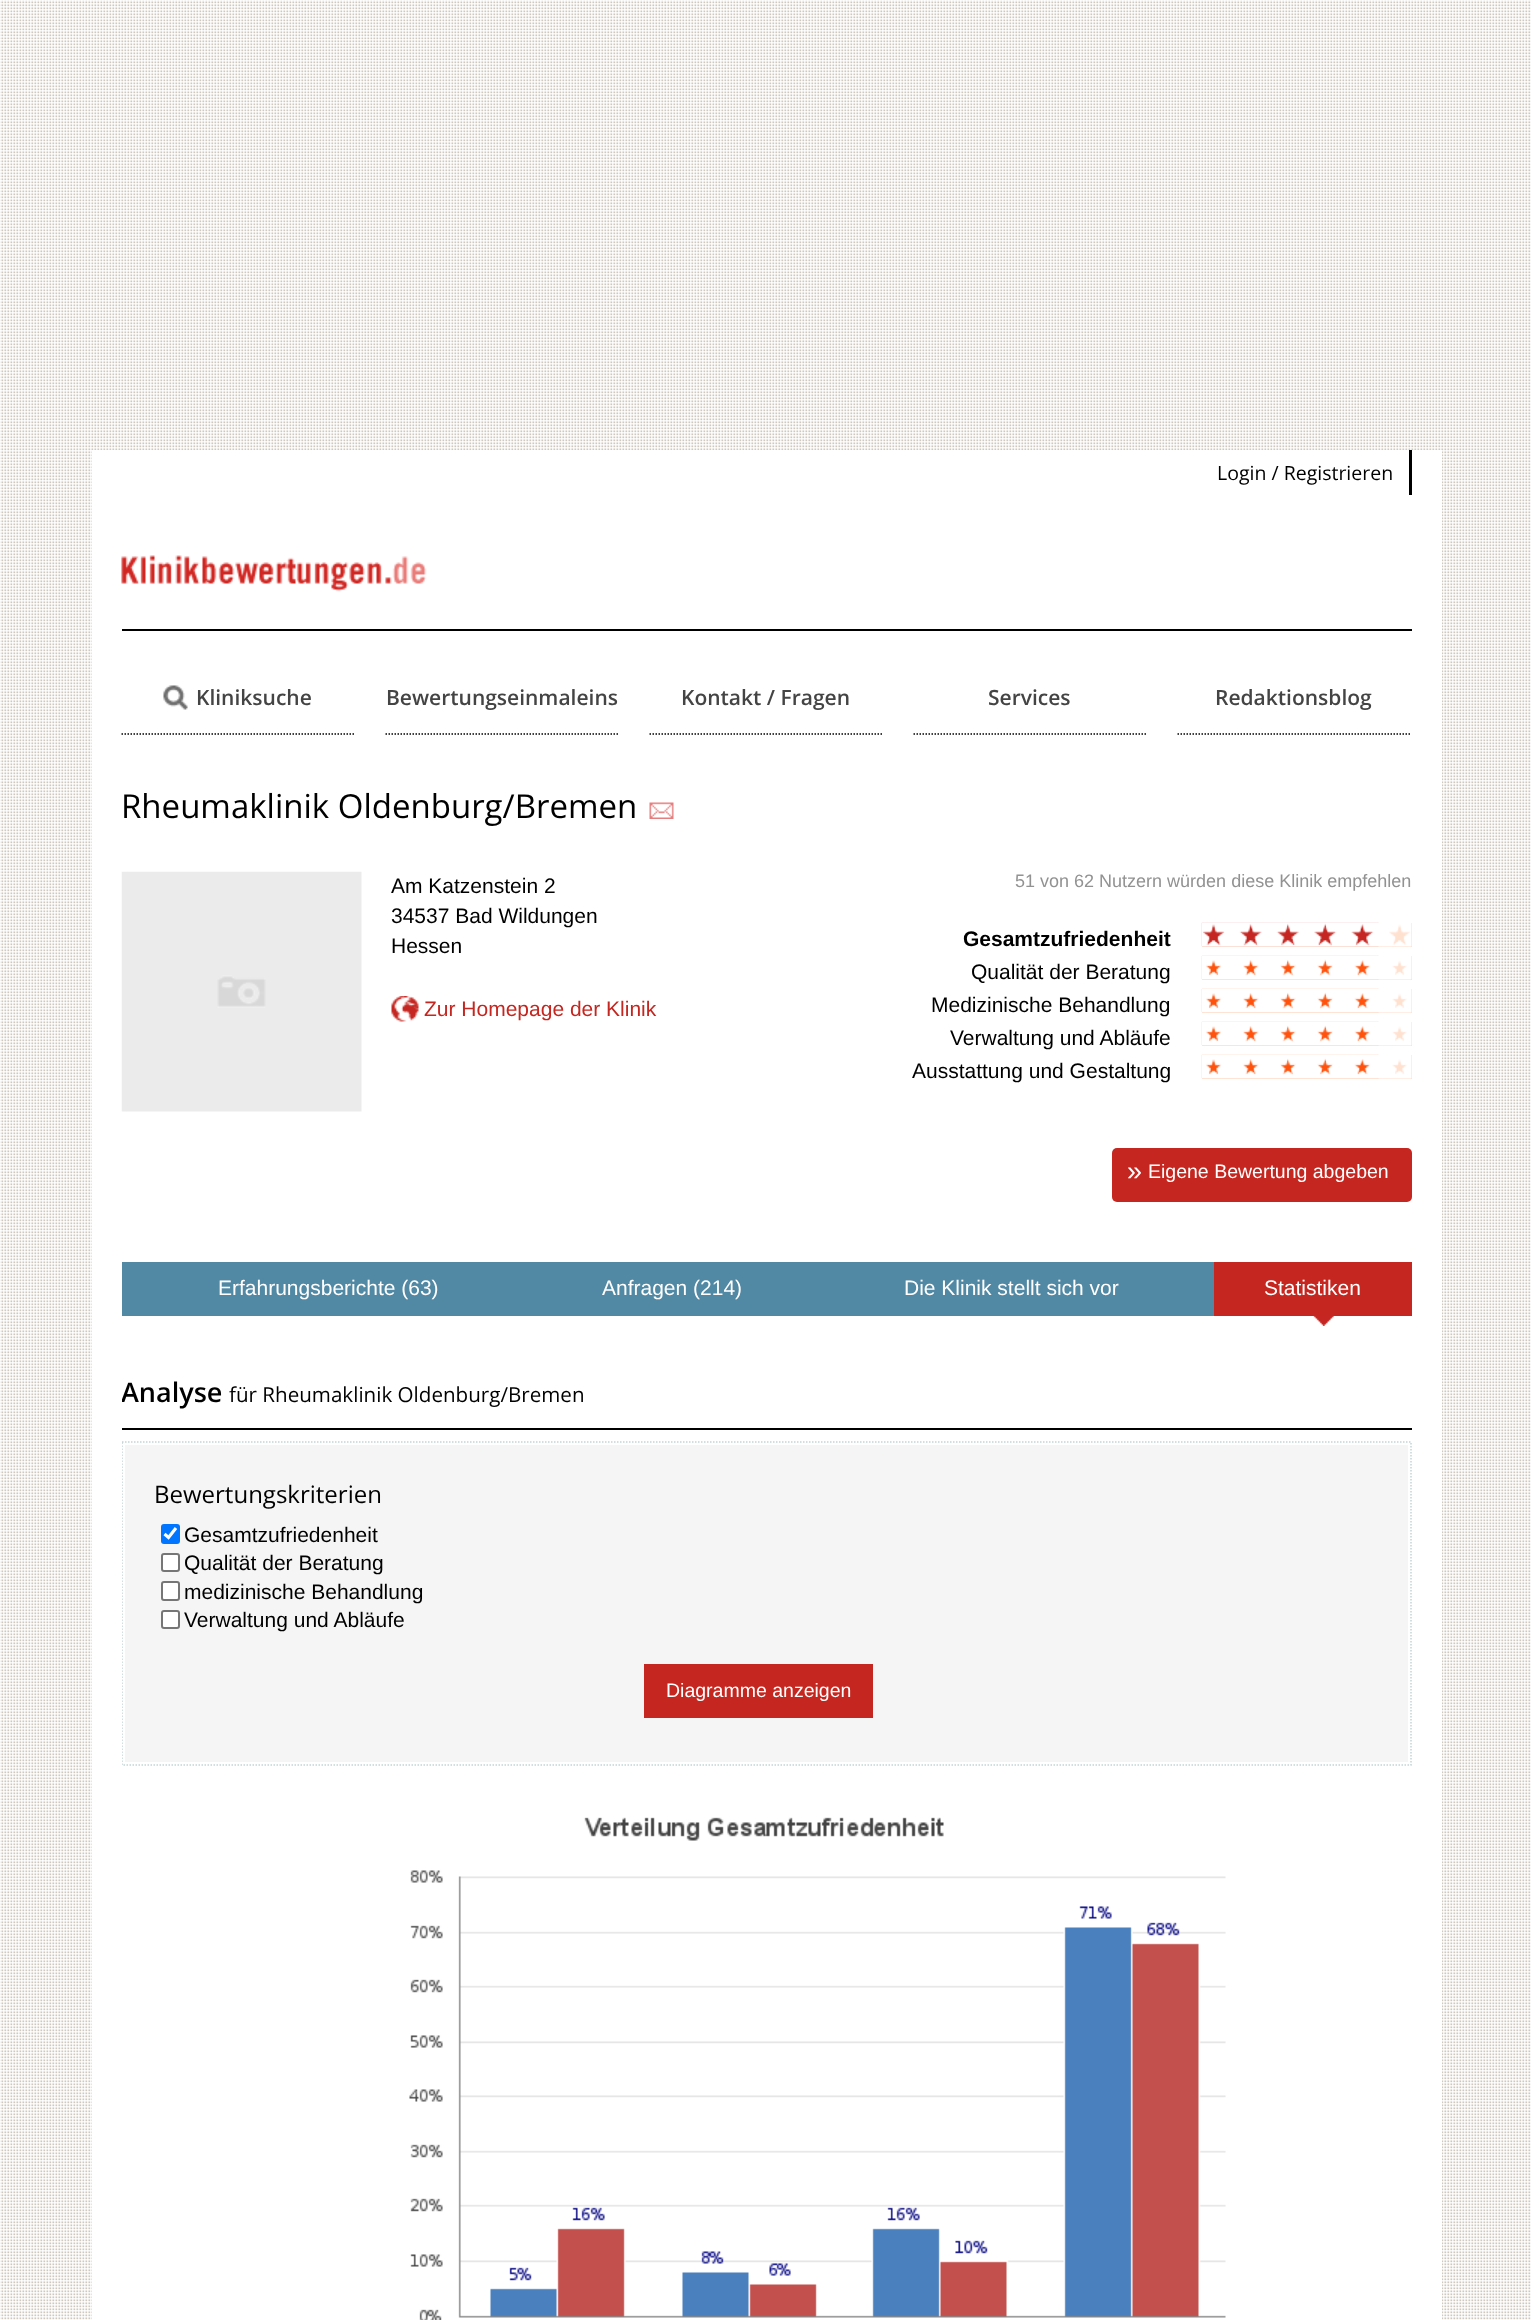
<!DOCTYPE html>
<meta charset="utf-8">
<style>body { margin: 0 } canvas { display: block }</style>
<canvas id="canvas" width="1531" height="2320"></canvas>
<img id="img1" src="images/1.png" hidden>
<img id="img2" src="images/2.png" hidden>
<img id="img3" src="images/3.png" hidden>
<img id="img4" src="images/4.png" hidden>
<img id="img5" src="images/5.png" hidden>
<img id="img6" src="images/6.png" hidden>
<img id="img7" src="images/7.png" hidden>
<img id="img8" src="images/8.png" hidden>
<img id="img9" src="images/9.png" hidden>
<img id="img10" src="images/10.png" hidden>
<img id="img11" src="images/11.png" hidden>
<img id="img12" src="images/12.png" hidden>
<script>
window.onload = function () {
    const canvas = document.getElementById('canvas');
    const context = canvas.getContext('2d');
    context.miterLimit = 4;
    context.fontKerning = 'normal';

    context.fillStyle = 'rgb(255, 255, 255)';
    context.fillRect(0, 0, 1531, 2320);
    context.drawImage(document.getElementById('img1'), 0, 0, 1531, 2320);
    context.fillRect(92, 450, 1350, 1870);
    context.fillStyle = 'rgb(0, 0, 0)';
    context.fillRect(122, 629, 1290, 2);
    context.fillRect(1409, 450, 3, 45);
    context.drawImage(document.getElementById('img2'), 121, 555, 306, 37);
    context.beginPath();
    context.moveTo(121.5, 734);
    context.lineTo(355.5, 734);
    context.strokeStyle = 'rgb(0, 0, 0)';
    context.lineWidth = 1.5;
    context.setLineDash([1.5, 1.5]);
    context.stroke();
    context.drawImage(document.getElementById('img3'), 163, 685, 25, 25);
    context.beginPath();
    context.moveTo(385.5, 734);
    context.lineTo(619.5, 734);
    context.stroke();
    context.beginPath();
    context.moveTo(649.5, 734);
    context.lineTo(883.5, 734);
    context.stroke();
    context.beginPath();
    context.moveTo(913.5, 734);
    context.lineTo(1147.5, 734);
    context.stroke();
    context.beginPath();
    context.moveTo(1177.5, 734);
    context.lineTo(1411.5, 734);
    context.stroke();
    context.drawImage(document.getElementById('img4'), 649, 802, 25, 17);
    context.drawImage(document.getElementById('img5'), 121, 871, 241, 241);
    context.drawImage(document.getElementById('img6'), 391, 996, 28, 26);
    context.fillStyle = 'rgb(255, 225, 208)';
    context.fillRect(1202, 923, 210, 24);
    context.drawImage(document.getElementById('img7'), 1201, 922, 211, 25);
    context.drawImage(document.getElementById('img8'), 1201, 922, 211, 25);
    context.fillRect(1202, 956, 210, 24);
    context.drawImage(document.getElementById('img9'), 1201, 955, 211, 25);
    context.drawImage(document.getElementById('img10'), 1201, 955, 211, 25);
    context.fillRect(1202, 989, 210, 24);
    context.drawImage(document.getElementById('img9'), 1201, 988, 211, 25);
    context.drawImage(document.getElementById('img10'), 1201, 988, 211, 25);
    context.fillRect(1202, 1022, 210, 24);
    context.drawImage(document.getElementById('img9'), 1201, 1021, 211, 25);
    context.drawImage(document.getElementById('img10'), 1201, 1021, 211, 25);
    context.fillRect(1202, 1055, 210, 24);
    context.drawImage(document.getElementById('img9'), 1201, 1054, 211, 25);
    context.drawImage(document.getElementById('img10'), 1201, 1054, 211, 25);
    context.fillStyle = 'rgb(197, 38, 31)';
    context.beginPath();
    context.roundRect(1112, 1148, 300, 54, 5);
    context.fill();
    context.fillStyle = 'rgb(81, 136, 163)';
    context.fillRect(122, 1262, 1092, 54);
    context.fillStyle = 'rgb(197, 38, 31)';
    context.fillRect(1214, 1262, 198, 54);
    context.drawImage(document.getElementById('img11'), 1313, 1316, 21, 10);
    context.fillStyle = 'rgb(0, 0, 0)';
    context.fillRect(122, 1428, 1290, 2);
    context.fillStyle = 'rgb(245, 245, 245)';
    context.fillRect(125, 1445, 1283, 317);
    context.save();
    context.beginPath();
    context.rect(122, 1376, 1290, 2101);
    context.clip();
    context.beginPath();
    context.moveTo(122, 1442);
    context.lineTo(1411, 1442);
    context.lineTo(1411, 1765);
    context.lineTo(122, 1765);
    context.closePath();
    context.strokeStyle = 'rgb(195, 212, 213)';
    context.stroke();
    context.restore();
    context.fillStyle = 'rgb(0, 117, 255)';
    context.beginPath();
    context.roundRect(161, 1524, 19, 20, 3);
    context.fill();
    context.beginPath();
    context.moveTo(164.5, 1534);
    context.lineTo(168.5, 1537.5);
    context.lineTo(176, 1528);
    context.strokeStyle = 'rgb(255, 255, 255)';
    context.lineWidth = 3.1;
    context.setLineDash([]);
    context.stroke();
    context.fillStyle = 'rgb(255, 255, 255)';
    context.beginPath();
    context.roundRect(162, 1554, 17, 17, 2);
    context.fill();
    context.strokeStyle = 'rgb(118, 118, 118)';
    context.lineWidth = 2;
    context.stroke();
    context.beginPath();
    context.roundRect(162, 1582, 17, 18, 2);
    context.fill();
    context.stroke();
    context.beginPath();
    context.roundRect(162, 1611, 17, 17, 2);
    context.fill();
    context.stroke();
    context.fillStyle = 'rgb(197, 38, 31)';
    context.fillRect(644, 1664, 229, 54);
    context.drawImage(document.getElementById('img12'), 409, 1817, 817, 503);
    context.font = '19.5px Open Sans';
    context.fillStyle = 'rgb(0, 0, 0)';
    context.fillText('Login / Registrieren', 1217, 480);
    context.font = '600 21px Open Sans';
    context.fillStyle = 'rgb(68, 68, 68)';
    context.fillText('Kliniksuche', 196, 705);
    context.fillText('Bewertungseinmaleins', 386, 705);
    context.fillText('Kontakt / Fragen', 681, 705);
    context.fillText('Services', 988, 705);
    context.fillText('Redaktionsblog', 1215, 705);
    context.font = '33px Open Sans';
    context.fillStyle = 'rgb(0, 0, 0)';
    context.fillText('Rheumaklinik Oldenburg/Bremen', 121, 818);
    context.font = '21px Liberation Sans';
    context.fillText('Am Katzenstein 2', 391, 893);
    context.fillText('34537 Bad Wildungen', 391, 923);
    context.fillText('Hessen', 391, 953);
    context.fillStyle = 'rgb(197, 38, 31)';
    context.fillText('Zur Homepage der Klinik', 424, 1016);
    context.font = '18px Liberation Sans';
    context.fillStyle = 'rgb(146, 146, 146)';
    context.fillText('51 von 62 Nutzern würden diese Klinik empfehlen', 1015, 887);
    context.font = 'bold 21px Liberation Sans';
    context.fillStyle = 'rgb(0, 0, 0)';
    context.fillText('Gesamtzufriedenheit', 963, 946);
    context.font = '21px Liberation Sans';
    context.fillText('Qualität der Beratung', 971, 979);
    context.fillText('Medizinische Behandlung', 931, 1012);
    context.fillText('Verwaltung und Abläufe', 950, 1045);
    context.fillText('Ausstattung und Gestaltung', 912, 1078);
    context.font = '27px Liberation Sans';
    context.fillStyle = 'rgb(255, 255, 255)';
    context.fillText('»', 1127, 1180);
    context.font = '19.5px Liberation Sans';
    context.fillText('Eigene Bewertung abgeben', 1148, 1178);
    context.font = '21px Liberation Sans';
    context.fillText('Erfahrungsberichte (63)', 218, 1295);
    context.fillText('Anfragen (214)', 602, 1295);
    context.fillText('Die Klinik stellt sich vor', 904, 1295);
    context.fillText('Statistiken', 1264, 1295);
    context.save();
    context.beginPath();
    context.rect(122, 1376, 1290, 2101);
    context.clip();
    context.font = '600 27px Open Sans';
    context.fillStyle = 'rgb(0, 0, 0)';
    context.fillText('Analyse', 121, 1402);
    context.restore();
    context.font = '20.6px Open Sans';
    context.fillStyle = 'rgb(0, 0, 0)';
    context.fillText('für Rheumaklinik Oldenburg/Bremen', 229, 1402);
    context.font = '24px Open Sans';
    context.fillText('Bewertungskriterien', 154, 1503);
    context.font = '21px Liberation Sans';
    context.fillText('Gesamtzufriedenheit', 184, 1542);
    context.fillText('Qualität der Beratung', 184, 1570);
    context.fillText('medizinische Behandlung', 184, 1599);
    context.fillText('Verwaltung und Abläufe', 184, 1627);
    context.font = '19.5px Liberation Sans';
    context.fillStyle = 'rgb(255, 255, 255)';
    context.fillText('Diagramme anzeigen', 666, 1697);
};
</script>
